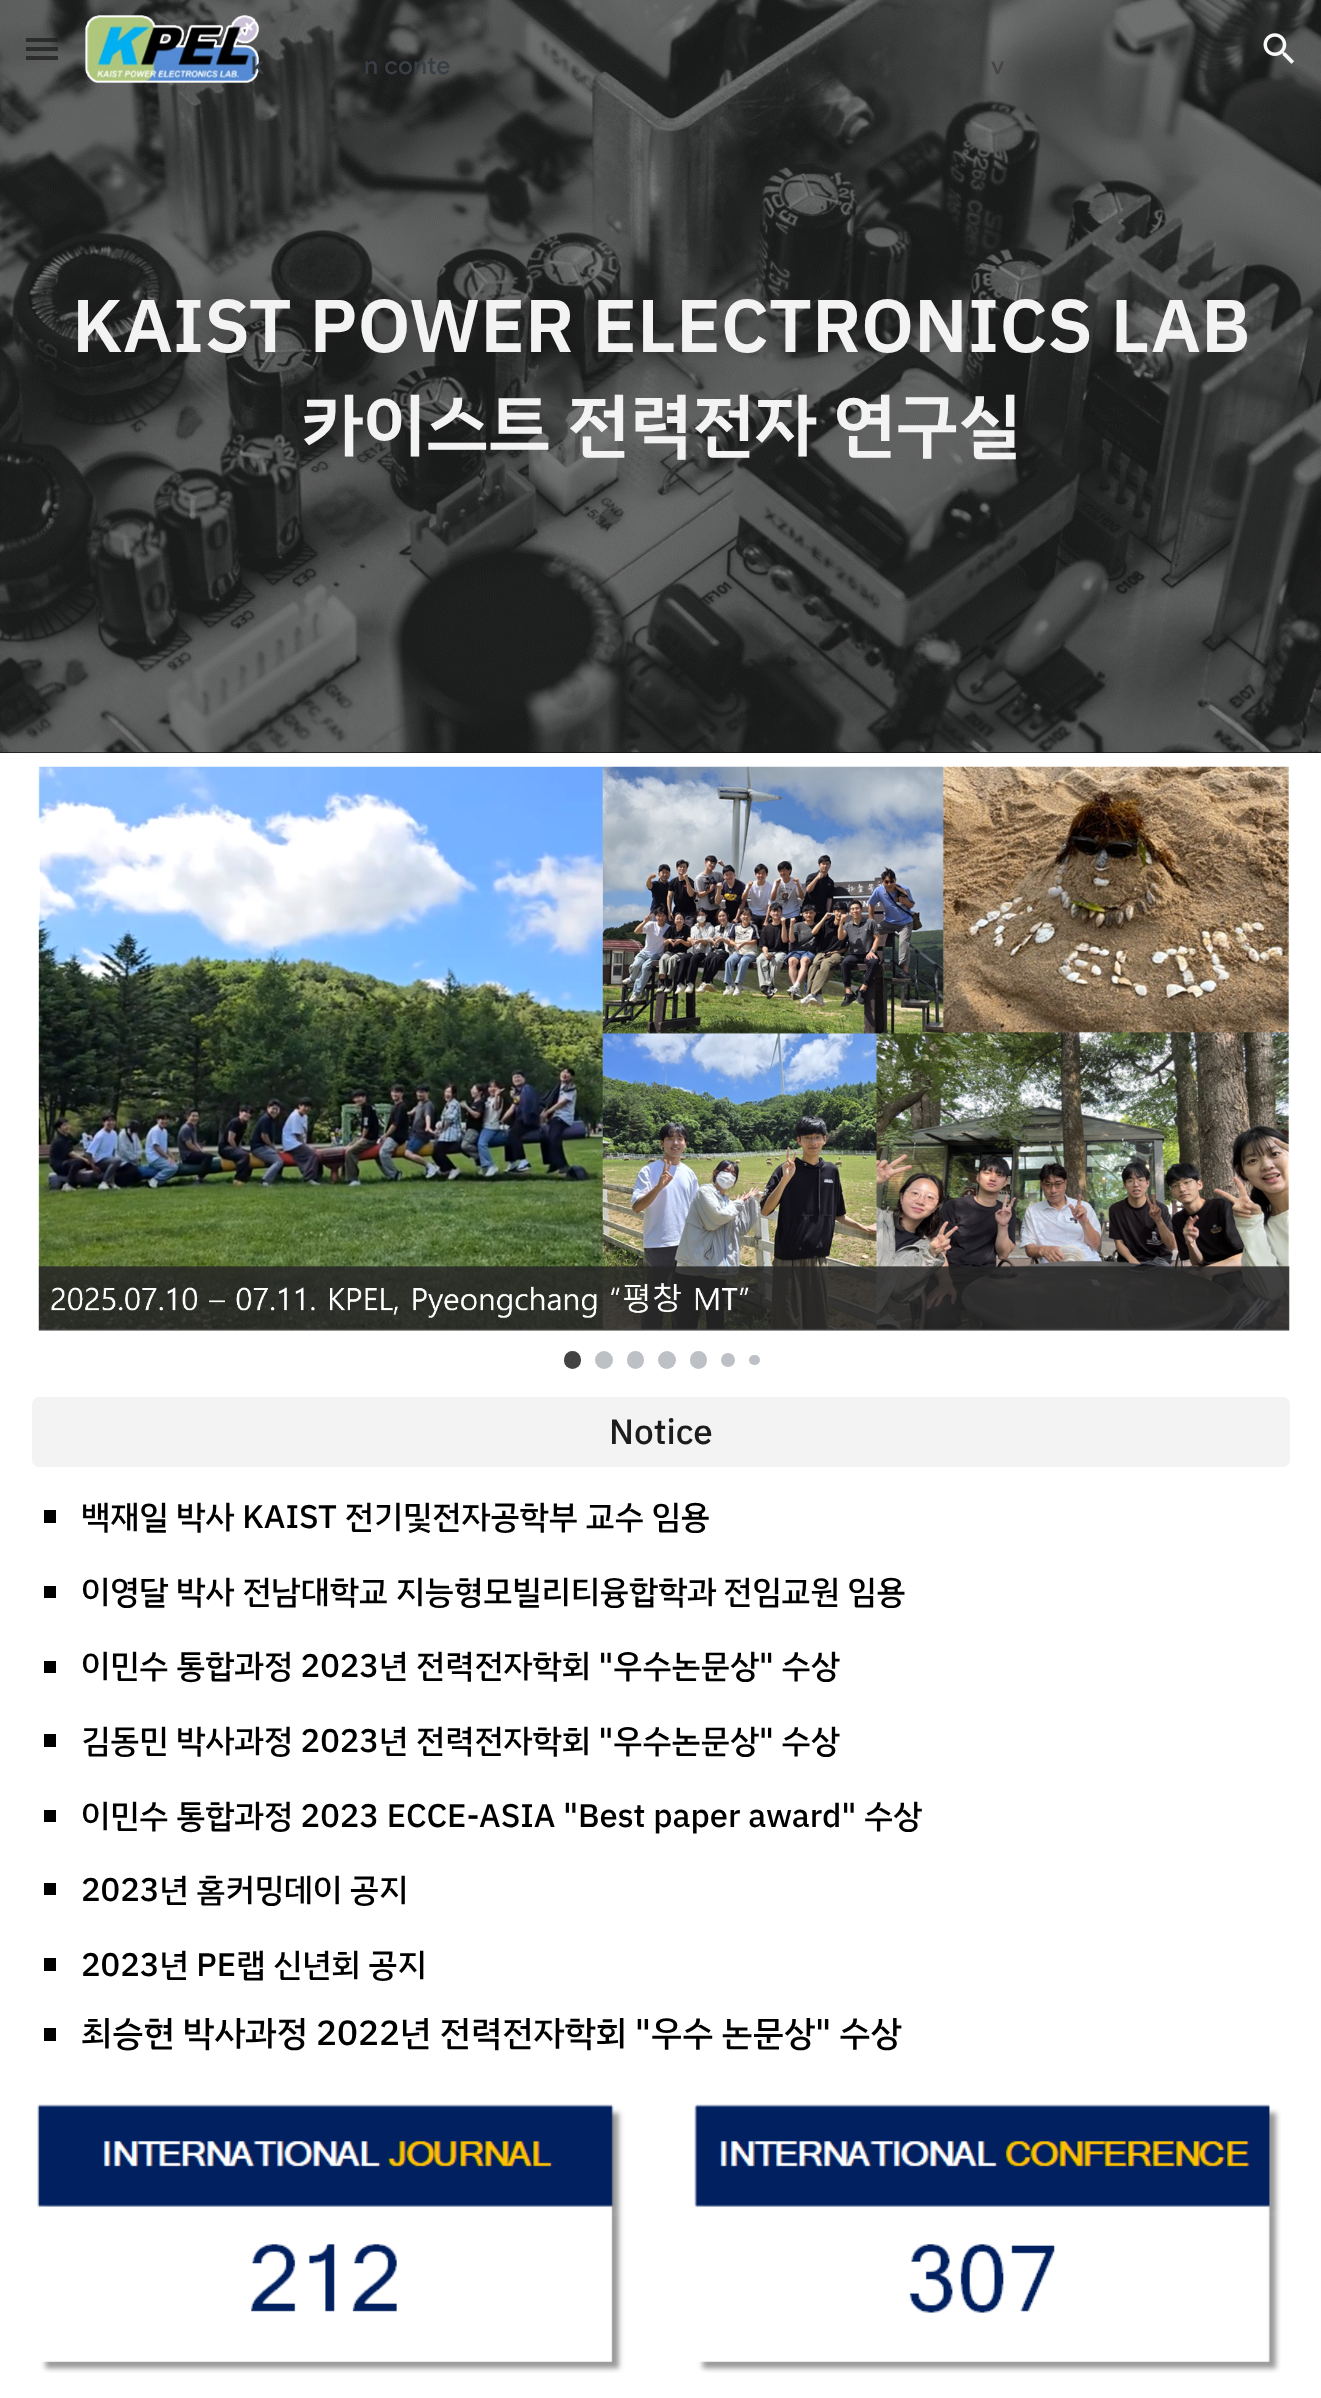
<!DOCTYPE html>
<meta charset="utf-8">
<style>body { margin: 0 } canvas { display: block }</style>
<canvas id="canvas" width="1321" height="2398"></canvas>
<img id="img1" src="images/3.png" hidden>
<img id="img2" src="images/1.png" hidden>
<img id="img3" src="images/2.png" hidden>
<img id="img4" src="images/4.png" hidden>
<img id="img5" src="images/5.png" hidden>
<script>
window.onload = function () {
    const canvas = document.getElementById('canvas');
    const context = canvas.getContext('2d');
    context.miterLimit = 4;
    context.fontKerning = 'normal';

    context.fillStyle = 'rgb(255, 255, 255)';
    context.fillRect(0, 0, 1321, 2398);
    context.fillStyle = 'rgb(19, 19, 19)';
    context.fillRect(0, 752, 1321, 1);
    context.drawImage(document.getElementById('img1'), 0, 0, 1321, 753);
    context.fillStyle = 'rgba(28, 28, 28, 0.72)';
    context.fillRect(26, 38, 32, 4);
    context.fillRect(26, 47, 32, 4);
    context.fillRect(26, 56, 32, 4);
    context.drawImage(document.getElementById('img2'), 85, 15, 174, 68);
    context.drawImage(document.getElementById('img3'), 1263, 33, 31, 31);
    context.drawImage(document.getElementById('img4'), 38, 766, 1252, 565);
    context.fillStyle = 'rgb(67, 67, 67)';
    context.beginPath();
    context.roundRect(564, 1351, 17, 18, 8.5);
    context.fill();
    context.fillStyle = 'rgb(189, 193, 198)';
    context.beginPath();
    context.arc(604, 1360, 9, 0, 2 * Math.PI);
    context.fill();
    context.beginPath();
    context.roundRect(627, 1351, 17, 18, 8.5);
    context.fill();
    context.beginPath();
    context.arc(667, 1360, 9, 0, 2 * Math.PI);
    context.fill();
    context.beginPath();
    context.roundRect(690, 1351, 17, 18, 8.5);
    context.fill();
    context.beginPath();
    context.arc(728, 1360, 7, 0, 2 * Math.PI);
    context.fill();
    context.beginPath();
    context.roundRect(749, 1355, 11, 10, 5);
    context.fill();
    context.fillStyle = 'rgb(243, 243, 243)';
    context.beginPath();
    context.roundRect(33, 1398, 1256, 68, 6);
    context.fill();
    context.strokeStyle = 'rgb(243, 243, 243)';
    context.lineWidth = 2;
    context.stroke();
    context.fillStyle = 'rgb(0, 0, 0)';
    context.fillRect(44, 1510, 12, 13);
    context.fillRect(44, 1586, 12, 12);
    context.fillRect(44, 1661, 12, 12);
    context.fillRect(44, 1734, 12, 13);
    context.fillRect(44, 1810, 12, 12);
    context.fillRect(44, 1883, 12, 12);
    context.fillRect(44, 1958, 12, 13);
    context.fillRect(44, 2028, 12, 13);
    context.drawImage(document.getElementById('img5'), 37, 2104, 1244, 269);
    context.letterSpacing = '0.25px';
    context.font = '500 24.5px Google Sans';
    context.fillStyle = 'rgb(57, 62, 69)';
    context.fillText('k', 251, 74);
    context.fillText('n conte', 364, 74);
    context.fillStyle = 'rgb(69, 69, 69)';
    context.fillText('v', 991, 74);
    context.letterSpacing = '0px';
    context.font = '600 74.7px IBM Plex Sans KR';
    context.fillStyle = 'rgb(243, 243, 243)';
    context.fillText('KAIST POWER ELECTRONICS LAB', 72, 352);
    context.font = '600 70px IBM Plex Sans KR';
    context.fillText('카이스트 전력전자 연구실', 301, 449);
    context.font = '500 35px IBM Plex Sans KR';
    context.fillStyle = 'rgb(28, 28, 28)';
    context.fillText('Notice', 609, 1444);
    context.font = '500 32.7px IBM Plex Sans KR';
    context.fillStyle = 'rgb(0, 0, 0)';
    context.fillText('백재일 박사 KAIST 전기및전자공학부 교수 임용', 81, 1528);
    context.fillText('이영달 박사 전남대학교 지능형모빌리티융합학과', 81, 1603);
    context.fillText('전임교원 임용', 723, 1603);
    context.fillText('이민수 통합과정 2023년 전력전자학회 "우수논문상" 수상', 81, 1677);
    context.fillText('김동민 박사과정 2023년 전력전자학회 "우수논문상" 수상', 81, 1752);
    context.fillText('이민수 통합과정 2023 ECCE-ASIA "Best paper award" 수상', 81, 1827);
    context.fillText('2023년 홈커밍데이 공지', 81, 1901);
    context.fillText('2023년 PE랩 신년회 공지', 81, 1976);
    context.font = '500 35px IBM Plex Sans KR';
    context.fillText('최승현 박사과정 2022년 전력전자학회 "우수 논문상" 수상', 81, 2045);
};
</script>
